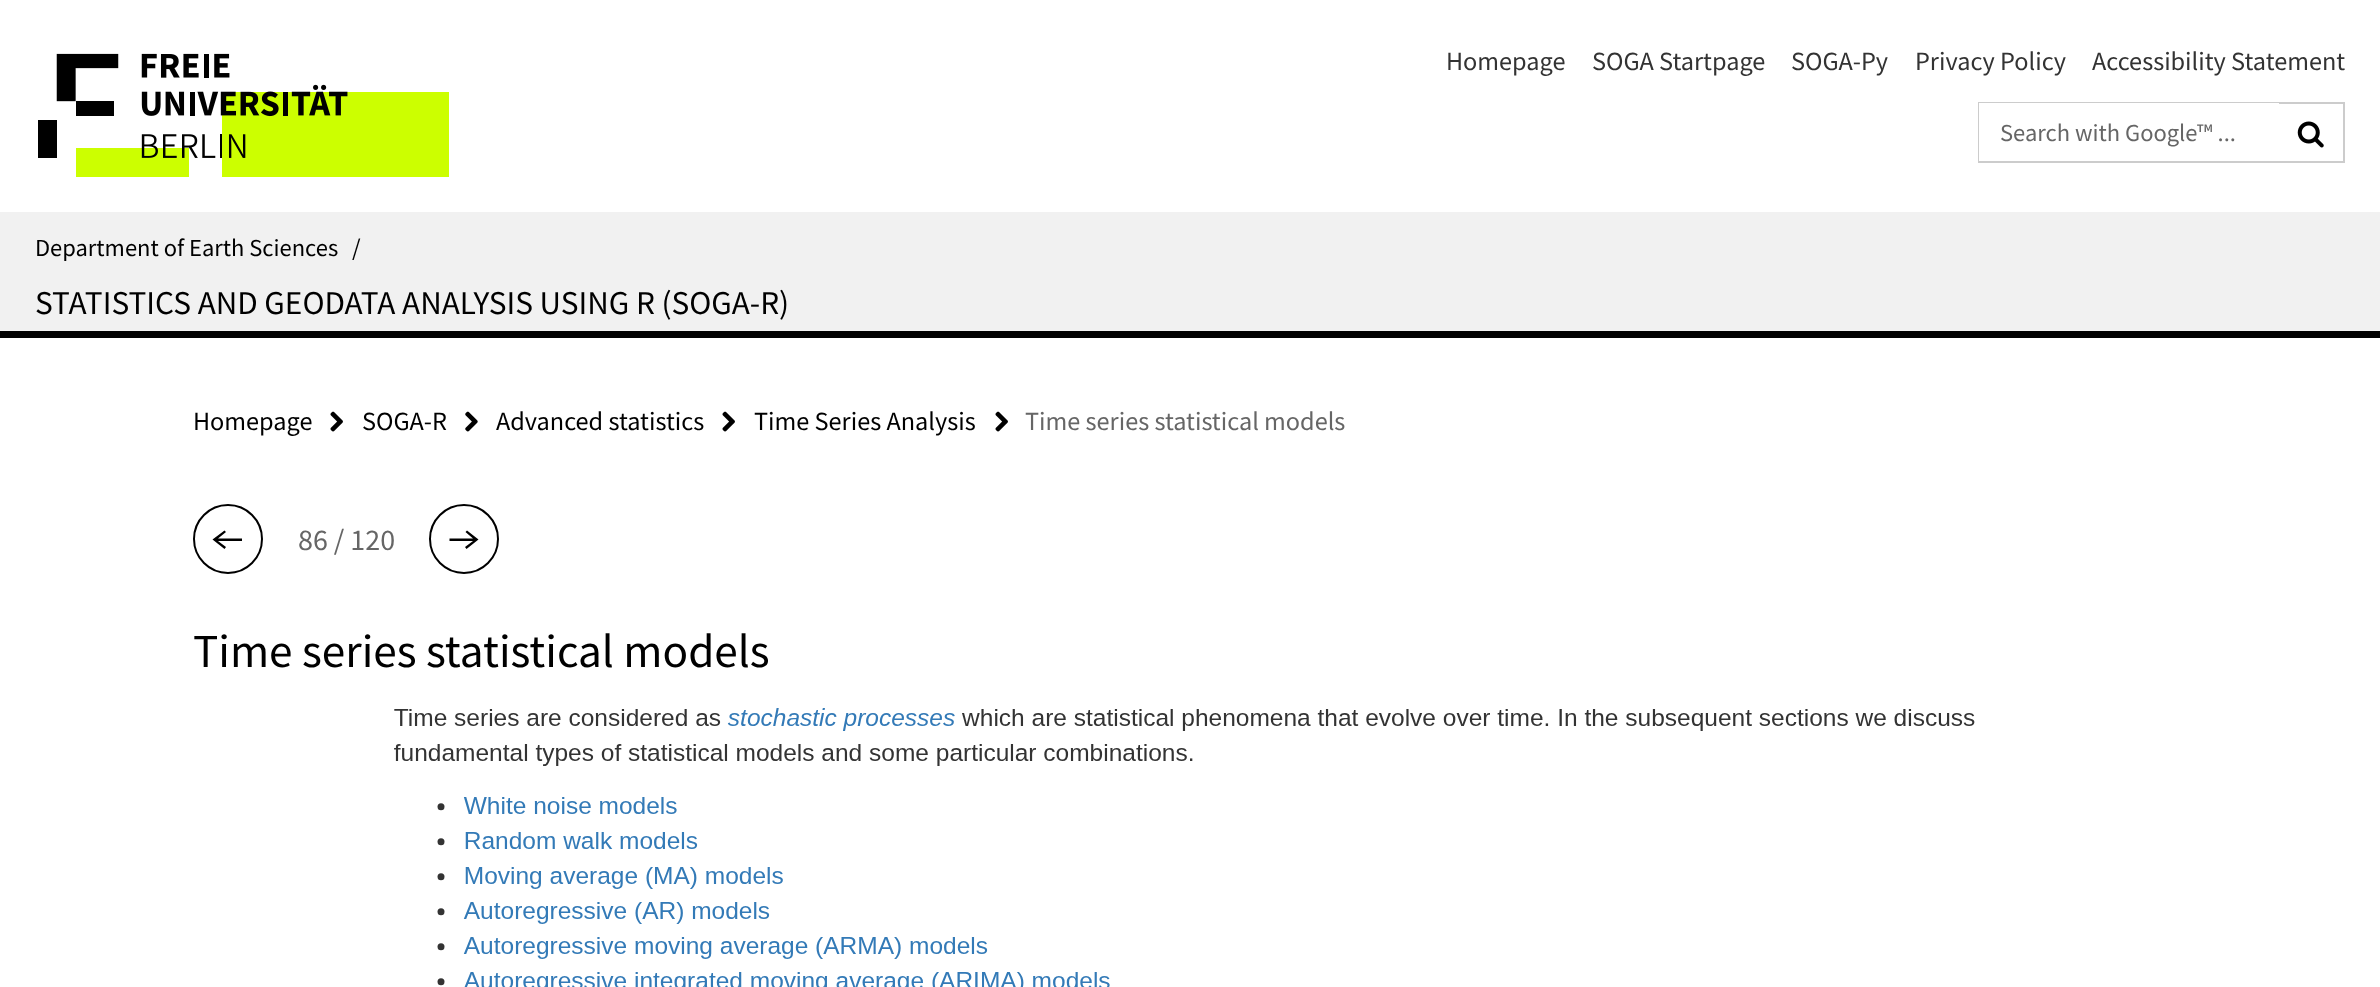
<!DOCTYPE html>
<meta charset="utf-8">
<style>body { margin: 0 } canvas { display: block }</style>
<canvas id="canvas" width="2380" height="987"></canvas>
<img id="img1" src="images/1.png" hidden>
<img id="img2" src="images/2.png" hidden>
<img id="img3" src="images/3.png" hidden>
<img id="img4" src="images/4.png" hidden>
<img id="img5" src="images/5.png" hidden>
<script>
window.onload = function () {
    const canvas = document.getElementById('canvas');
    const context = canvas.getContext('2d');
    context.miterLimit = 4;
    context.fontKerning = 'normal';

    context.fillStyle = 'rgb(255, 255, 255)';
    context.fillRect(0, 0, 2380, 987);
    context.drawImage(document.getElementById('img1'), 38, 53, 411, 124);
    context.strokeStyle = 'rgb(204, 204, 204)';
    context.lineWidth = 2;
    context.strokeRect(1979, 103, 365, 59);
    context.fillRect(1979, 103, 300, 58);
    context.drawImage(document.getElementById('img2'), 2297, 121, 27, 27);
    context.fillStyle = 'rgb(241, 241, 241)';
    context.fillRect(0, 212, 2380, 119);
    context.fillStyle = 'rgb(0, 0, 0)';
    context.fillRect(0, 331, 2380, 7);
    context.drawImage(document.getElementById('img3'), 330, 411, 13, 21);
    context.drawImage(document.getElementById('img4'), 465, 411, 13, 21);
    context.drawImage(document.getElementById('img3'), 722, 411, 13, 21);
    context.drawImage(document.getElementById('img3'), 995, 411, 13, 21);
    context.beginPath();
    context.arc(228, 539, 34, 0, 2 * Math.PI);
    context.strokeStyle = 'rgb(0, 0, 0)';
    context.stroke();
    context.beginPath();
    context.moveTo(242, 538.5);
    context.lineTo(218, 538.5);
    context.lineTo(226, 532);
    context.lineTo(224.5, 530.5);
    context.lineTo(212.5, 539.5);
    context.lineTo(224.5, 549);
    context.lineTo(226, 547);
    context.lineTo(218, 541);
    context.lineTo(242, 541);
    context.closePath();
    context.fill();
    context.beginPath();
    context.arc(464, 539, 34, 0, 2 * Math.PI);
    context.stroke();
    context.beginPath();
    context.moveTo(467, 530.5);
    context.lineTo(465.5, 532);
    context.lineTo(473, 538.5);
    context.lineTo(449.5, 538.5);
    context.lineTo(449.5, 541);
    context.lineTo(473, 541);
    context.lineTo(465, 547);
    context.lineTo(466.5, 549);
    context.lineTo(478.5, 539.5);
    context.closePath();
    context.fill();
    context.drawImage(document.getElementById('img5'), 394, 708, 1581, 279);
    context.font = '26.25px Source Sans Pro';
    context.fillStyle = 'rgb(51, 51, 51)';
    context.fillText('Homepage', 1446, 70);
    context.fillText('SOGA Startpage', 1592, 70);
    context.fillText('SOGA-Py', 1791, 70);
    context.fillText('Privacy Policy', 1915, 70);
    context.fillText('Accessibility Statement', 2092, 70);
    context.font = '24.5px Source Sans Pro';
    context.fillStyle = 'rgb(102, 102, 102)';
    context.fillText('Search with Google™ ...', 2000, 141);
    context.fillStyle = 'rgb(0, 0, 0)';
    context.fillText('Department of Earth Sciences', 35, 256);
    context.fillText('/', 352, 256);
    context.font = '33.25px Source Sans Pro';
    context.fillText('STATISTICS AND GEODATA ANALYSIS USING R (SOGA-R)', 35, 314);
    context.font = '26.25px Source Sans Pro';
    context.fillText('Homepage', 193, 430);
    context.fillText('SOGA-R', 362, 430);
    context.fillText('Advanced statistics', 496, 430);
    context.fillText('Time Series Analysis', 754, 430);
    context.fillStyle = 'rgb(102, 102, 102)';
    context.fillText('Time series statistical models', 1025, 430);
    context.font = '30px Source Sans Pro';
    context.fillText('86 / 120', 298, 550);
    context.font = '47.25px Source Sans Pro';
    context.fillStyle = 'rgb(0, 0, 0)';
    context.fillText('Time series statistical models', 193, 667);
};
</script>
